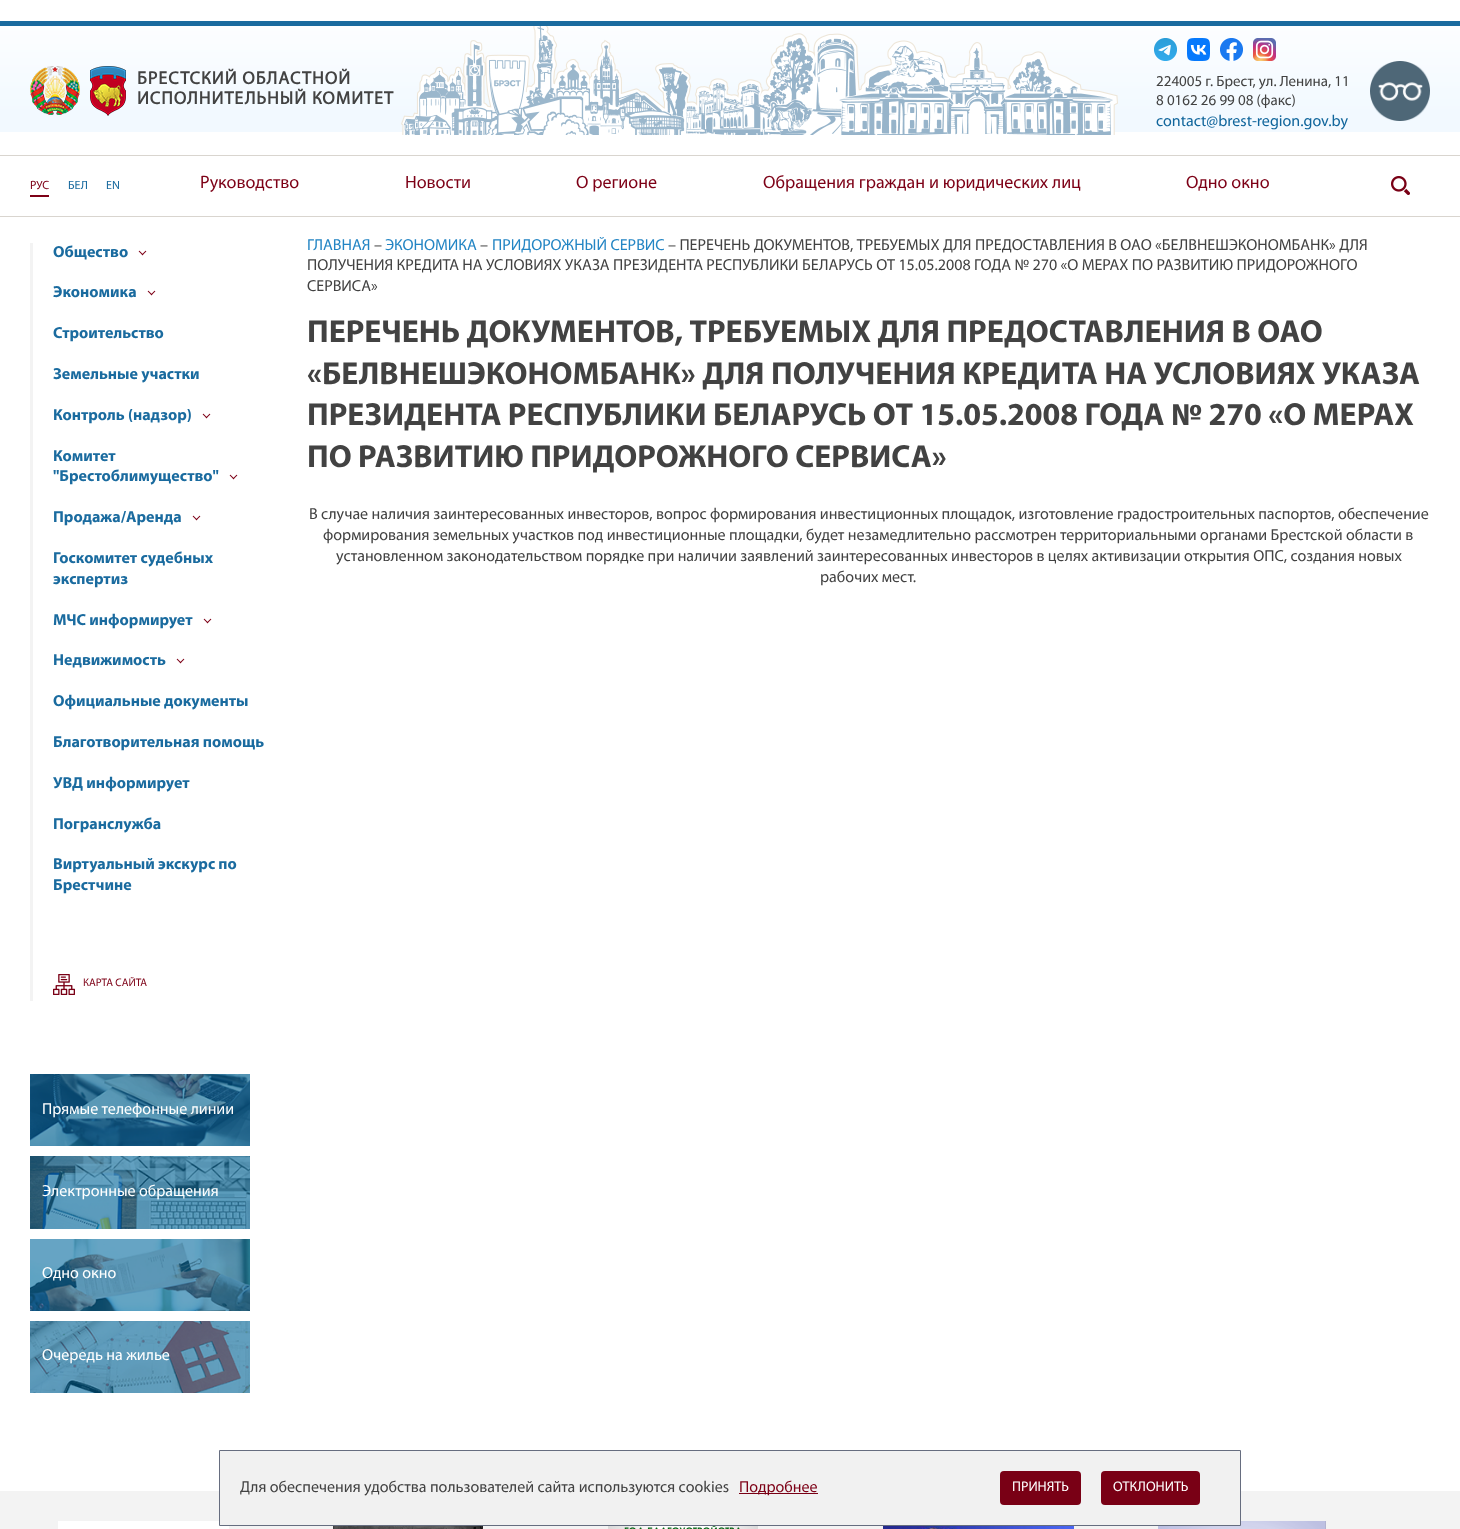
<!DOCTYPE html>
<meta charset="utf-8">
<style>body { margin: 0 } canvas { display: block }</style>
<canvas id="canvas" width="1460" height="1529"></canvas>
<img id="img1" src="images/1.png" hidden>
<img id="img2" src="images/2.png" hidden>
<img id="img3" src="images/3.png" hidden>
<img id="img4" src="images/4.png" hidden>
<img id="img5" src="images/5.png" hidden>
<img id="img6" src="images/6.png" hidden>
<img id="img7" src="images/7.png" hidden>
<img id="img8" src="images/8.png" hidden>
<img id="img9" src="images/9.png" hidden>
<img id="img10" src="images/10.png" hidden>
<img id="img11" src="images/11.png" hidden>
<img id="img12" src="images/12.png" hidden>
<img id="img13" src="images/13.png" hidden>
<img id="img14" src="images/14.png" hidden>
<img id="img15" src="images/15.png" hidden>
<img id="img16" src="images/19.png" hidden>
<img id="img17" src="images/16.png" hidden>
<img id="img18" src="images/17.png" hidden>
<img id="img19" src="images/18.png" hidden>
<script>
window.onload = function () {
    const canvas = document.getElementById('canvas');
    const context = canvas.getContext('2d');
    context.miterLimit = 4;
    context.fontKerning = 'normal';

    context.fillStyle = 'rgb(255, 255, 255)';
    context.fillRect(0, 0, 1460, 1529);
    context.fillStyle = 'rgb(26, 107, 159)';
    context.fillRect(0, 21, 1460, 5);
    context.drawImage(document.getElementById('img1'), 0, 26, 1460, 109);
    context.drawImage(document.getElementById('img2'), 30, 66, 50, 49);
    context.drawImage(document.getElementById('img3'), 90, 66, 36, 50);
    context.drawImage(document.getElementById('img4'), 1154, 38, 23, 23);
    context.drawImage(document.getElementById('img5'), 1187, 38, 23, 23);
    context.drawImage(document.getElementById('img6'), 1220, 38, 23, 23);
    context.drawImage(document.getElementById('img7'), 1253, 38, 23, 23);
    context.drawImage(document.getElementById('img8'), 1370, 61, 60, 60);
    context.fillStyle = 'rgb(217, 213, 207)';
    context.fillRect(0, 155, 1460, 1);
    context.fillRect(0, 216, 1460, 1);
    context.fillStyle = 'rgb(125, 0, 22)';
    context.fillRect(30, 195, 19, 2);
    context.drawImage(document.getElementById('img9'), 1391, 176, 19, 19);
    context.fillStyle = 'rgb(243, 243, 243)';
    context.fillRect(30, 243, 3, 758);
    context.drawImage(document.getElementById('img10'), 138, 250, 9, 6);
    context.drawImage(document.getElementById('img10'), 147, 290, 9, 6);
    context.drawImage(document.getElementById('img10'), 202, 413, 9, 6);
    context.drawImage(document.getElementById('img10'), 229, 474, 9, 6);
    context.drawImage(document.getElementById('img10'), 192, 515, 9, 6);
    context.drawImage(document.getElementById('img10'), 203, 618, 9, 6);
    context.drawImage(document.getElementById('img10'), 176, 658, 9, 6);
    context.drawImage(document.getElementById('img11'), 53, 974, 22, 21);
    context.drawImage(document.getElementById('img12'), 30, 1074, 220, 72);
    context.drawImage(document.getElementById('img13'), 30, 1156, 220, 73);
    context.drawImage(document.getElementById('img14'), 30, 1239, 220, 72);
    context.drawImage(document.getElementById('img15'), 30, 1321, 220, 72);
    context.fillRect(0, 1491, 1460, 38);
    context.fillStyle = 'rgb(255, 255, 255)';
    context.fillRect(58, 1521, 171, 8);
    context.drawImage(document.getElementById('img16'), 1158, 1521, 168, 8);
    context.fillStyle = 'rgb(241, 241, 241)';
    context.beginPath();
    context.rect(219.5, 1450.5, 1021, 75);
    context.fill();
    context.strokeStyle = 'rgb(102, 109, 127)';
    context.stroke();
    context.fillStyle = 'rgb(121, 0, 21)';
    context.fillRect(739, 1493, 79, 1);
    context.beginPath();
    context.roundRect(1000, 1471, 81, 34, 4);
    context.fill();
    context.beginPath();
    context.roundRect(1101, 1471, 99, 34, 4);
    context.fill();
    context.drawImage(document.getElementById('img17'), 333, 1526, 150, 3);
    context.drawImage(document.getElementById('img18'), 608, 1526, 150, 3);
    context.drawImage(document.getElementById('img19'), 883, 1526, 191, 3);
    context.letterSpacing = '1px';
    context.font = 'bold 18px Myriad';
    context.fillStyle = 'rgb(66, 66, 66)';
    context.fillText('БРЕСТСКИЙ ОБЛАСТНОЙ', 137, 84);
    context.fillText('ИСПОЛНИТЕЛЬНЫЙ КОМИТЕТ', 137, 104);
    context.letterSpacing = '0px';
    context.font = '15px Myriad';
    context.fillText('224005 г. Брест, ул. Ленина, 11', 1156, 86);
    context.fillText('8 0162 26 99 08 (факс)', 1156, 105);
    context.font = '16px Myriad';
    context.fillStyle = 'rgb(17, 102, 156)';
    context.fillText('contact@brest-region.gov.by', 1156, 126);
    context.font = '12px Myriad';
    context.fillStyle = 'rgb(125, 0, 22)';
    context.fillText('РУС', 30, 189);
    context.fillStyle = 'rgb(26, 107, 159)';
    context.fillText('БЕЛ', 68, 189);
    context.fillText('EN', 106, 189);
    context.font = '18px Myriad';
    context.fillStyle = 'rgb(125, 0, 22)';
    context.fillText('Руководство', 200, 188);
    context.fillText('Новости', 405, 188);
    context.fillText('О регионе', 576, 188);
    context.fillText('Обращения граждан и юридических лиц', 763, 188);
    context.fillText('Одно окно', 1186, 188);
    context.font = 'bold 16px "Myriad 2"';
    context.fillStyle = 'rgb(26, 107, 159)';
    context.fillText('Общество', 53, 257);
    context.fillText('Экономика', 53, 297);
    context.fillText('Строительство', 53, 338);
    context.fillText('Земельные участки', 53, 379);
    context.fillText('Контроль (надзор)', 53, 420);
    context.fillText('Комитет', 53, 461);
    context.fillText('"Брестоблимущество"', 53, 481);
    context.fillText('Продажа/Аренда', 53, 522);
    context.fillText('Госкомитет судебных', 53, 563);
    context.fillText('экспертиз', 53, 584);
    context.fillText('МЧС информирует', 53, 625);
    context.fillText('Недвижимость', 53, 665);
    context.fillText('Официальные документы', 53, 706);
    context.fillText('Благотворительная помощь', 53, 747);
    context.fillText('УВД информирует', 53, 788);
    context.fillText('Погранслужба', 53, 829);
    context.fillText('Виртуальный экскурс по', 53, 869);
    context.fillText('Брестчине', 53, 890);
    context.font = '11px Myriad';
    context.fillStyle = 'rgb(125, 0, 22)';
    context.fillText('КАРТА САЙТА', 83, 986);
    context.font = '16px Myriad';
    context.fillStyle = 'rgb(255, 255, 255)';
    context.fillText('Прямые телефонные линии', 42, 1114);
    context.fillText('Электронные обращения', 42, 1196);
    context.fillText('Одно окно', 42, 1278);
    context.fillText('Очередь на жилье', 42, 1360);
    context.fillStyle = 'rgb(35, 133, 196)';
    context.fillText('ГЛАВНАЯ', 307, 250);
    context.fillStyle = 'rgb(66, 66, 66)';
    context.fillText('–', 374, 250);
    context.fillStyle = 'rgb(35, 133, 196)';
    context.fillText('ЭКОНОМИКА', 385, 250);
    context.fillStyle = 'rgb(66, 66, 66)';
    context.fillText('–', 480, 250);
    context.fillStyle = 'rgb(35, 133, 196)';
    context.fillText('ПРИДОРОЖНЫЙ СЕРВИС', 492, 250);
    context.fillStyle = 'rgb(66, 66, 66)';
    context.fillText('– ПЕРЕЧЕНЬ ДОКУМЕНТОВ, ТРЕБУЕМЫХ ДЛЯ ПРЕДОСТАВЛЕНИЯ В ОАО «БЕЛВНЕШЭКОНОМБАНК» ДЛЯ', 668, 250);
    context.fillText('ПОЛУЧЕНИЯ КРЕДИТА НА УСЛОВИЯХ УКАЗА ПРЕЗИДЕНТА РЕСПУБЛИКИ БЕЛАРУСЬ ОТ 15.05.2008 ГОДА № 270 «О МЕРАХ ПО РАЗВИТИЮ ПРИДОРОЖНОГО', 307, 270);
    context.fillText('СЕРВИСА»', 307, 291);
    context.font = 'bold 32px "Myriad 2"';
    context.fillText('ПЕРЕЧЕНЬ ДОКУМЕНТОВ, ТРЕБУЕМЫХ ДЛЯ ПРЕДОСТАВЛЕНИЯ В ОАО', 307, 342);
    context.fillText('«БЕЛВНЕШЭКОНОМБАНК» ДЛЯ ПОЛУЧЕНИЯ КРЕДИТА НА УСЛОВИЯХ УКАЗА', 307, 384);
    context.fillText('ПРЕЗИДЕНТА РЕСПУБЛИКИ БЕЛАРУСЬ ОТ 15.05.2008 ГОДА № 270 «О МЕРАХ', 307, 425);
    context.fillText('ПО РАЗВИТИЮ ПРИДОРОЖНОГО СЕРВИСА»', 307, 467);
    context.font = '16px Myriad';
    context.fillText('В случае наличия заинтересованных инвесторов, вопрос формирования инвестиционных площадок, изготовление градостроительных паспортов, обеспечение', 309, 519);
    context.fillText('формирования земельных участков под инвестиционные площадки, будет незамедлительно рассмотрен территориальными органами Брестской области в', 323, 540);
    context.fillText('установленном законодательством порядке при наличии заявлений заинтересованных инвесторов в целях активизации открытия ОПС, создания новых', 336, 561);
    context.fillText('рабочих мест.', 820, 582);
    context.fillText('Для обеспечения удобства пользователей сайта используются cookies', 240, 1492);
    context.fillStyle = 'rgb(125, 0, 22)';
    context.fillText('Подробнее', 739, 1492);
    context.font = '14px Myriad';
    context.fillStyle = 'rgb(255, 255, 255)';
    context.fillText('ПРИНЯТЬ', 1012, 1491);
    context.fillText('ОТКЛОНИТЬ', 1113, 1491);
};
</script>
